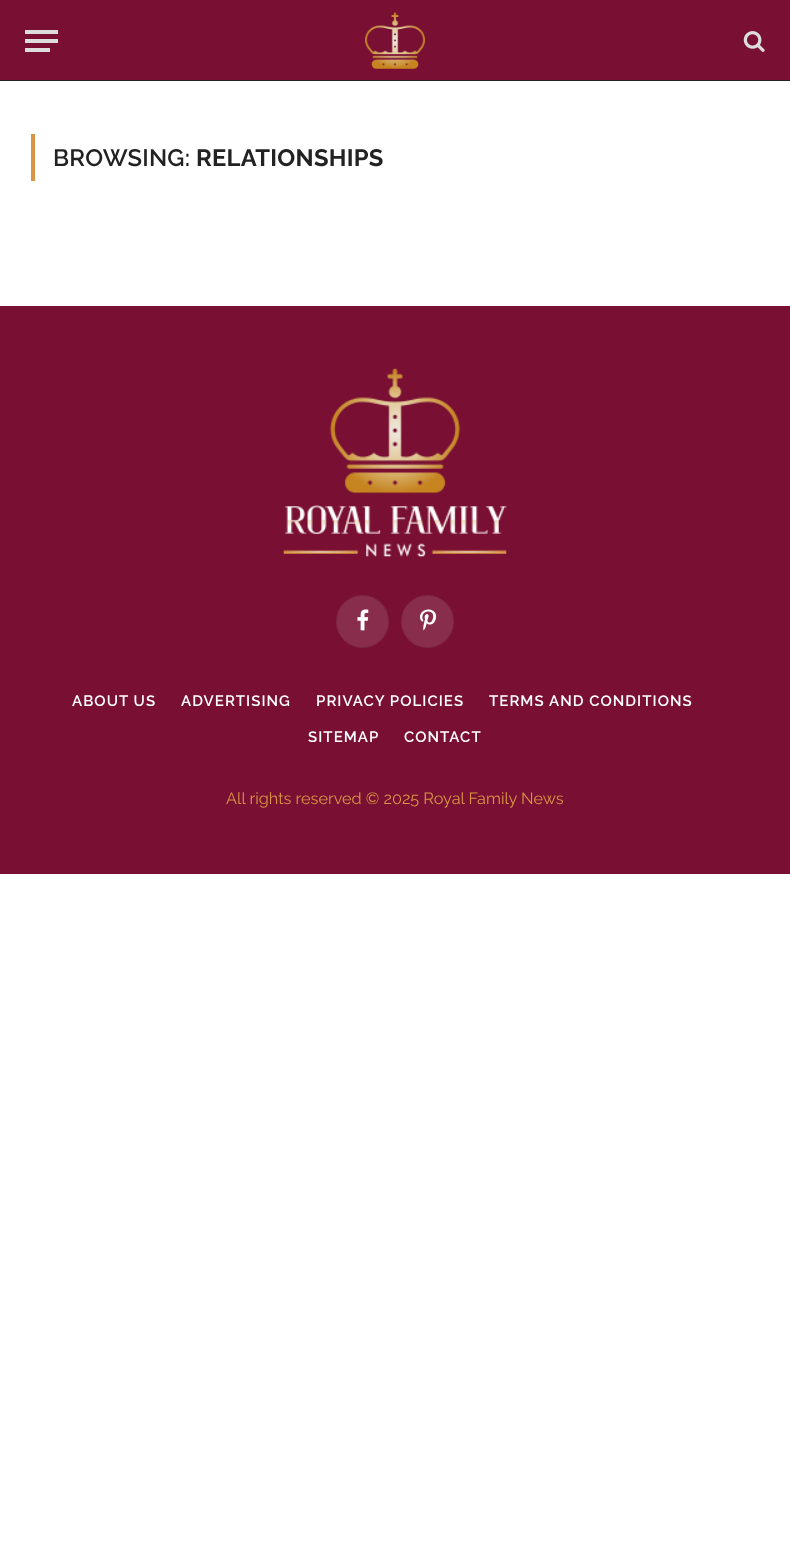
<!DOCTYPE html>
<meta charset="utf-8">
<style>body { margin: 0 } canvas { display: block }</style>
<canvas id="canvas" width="790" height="1547"></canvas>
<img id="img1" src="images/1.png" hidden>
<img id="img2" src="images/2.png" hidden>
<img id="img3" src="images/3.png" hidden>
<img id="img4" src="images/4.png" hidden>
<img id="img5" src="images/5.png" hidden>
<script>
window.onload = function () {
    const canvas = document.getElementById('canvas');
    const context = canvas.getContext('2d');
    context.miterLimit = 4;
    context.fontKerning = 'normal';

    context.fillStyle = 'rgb(255, 255, 255)';
    context.fillRect(0, 0, 790, 1547);
    context.fillStyle = 'rgb(121, 16, 52)';
    context.fillRect(0, 0, 790, 80);
    context.fillStyle = 'rgb(34, 34, 34)';
    context.fillRect(0, 80, 790, 1);
    context.fillStyle = 'rgb(221, 221, 221)';
    context.fillRect(25, 48, 25, 4);
    context.fillRect(25, 30, 33, 4);
    context.fillRect(25, 39, 33, 4);
    context.drawImage(document.getElementById('img1'), 365, 12, 60, 57);
    context.drawImage(document.getElementById('img2'), 743, 31, 22, 21);
    context.fillStyle = 'rgb(218, 149, 68)';
    context.fillRect(31, 134, 4, 47);
    context.fillStyle = 'rgb(121, 16, 52)';
    context.fillRect(0, 306, 790, 568);
    context.drawImage(document.getElementById('img3'), 283, 368, 224, 189);
    context.fillStyle = 'rgb(137, 45, 76)';
    context.beginPath();
    context.arc(362.5, 621.5, 26.5, 0, 2 * Math.PI);
    context.fill();
    context.beginPath();
    context.arc(362.5, 621.5, 26, 0, 2 * Math.PI);
    context.strokeStyle = 'rgba(0, 0, 0, 0.09)';
    context.stroke();
    context.drawImage(document.getElementById('img4'), 357, 609, 12, 22);
    context.beginPath();
    context.arc(427.5, 621.5, 26.5, 0, 2 * Math.PI);
    context.fill();
    context.beginPath();
    context.arc(427.5, 621.5, 26, 0, 2 * Math.PI);
    context.stroke();
    context.drawImage(document.getElementById('img5'), 420, 609, 17, 22);
    context.letterSpacing = '0.25px';
    context.font = '600 23.75px Raleway';
    context.fillStyle = 'rgb(34, 34, 34)';
    context.fillText('BROWSING:', 53, 166);
    context.font = 'bold 23.75px Raleway';
    context.fillText('RELATIONSHIPS', 196, 166);
    context.letterSpacing = '1.05px';
    context.font = '600 15px Raleway';
    context.fillStyle = 'rgb(255, 255, 255)';
    context.fillText('ABOUT US', 72, 706);
    context.fillText('ADVERTISING', 181, 706);
    context.fillText('PRIVACY POLICIES', 316, 706);
    context.fillText('TERMS AND CONDITIONS', 489, 706);
    context.fillText('SITEMAP', 308, 742);
    context.fillText('CONTACT', 404, 742);
    context.letterSpacing = '0px';
    context.font = '16.25px Raleway';
    context.fillStyle = 'rgb(218, 149, 68)';
    context.fillText('All rights reserved © 2025 Royal Family News', 226, 804);
};
</script>
